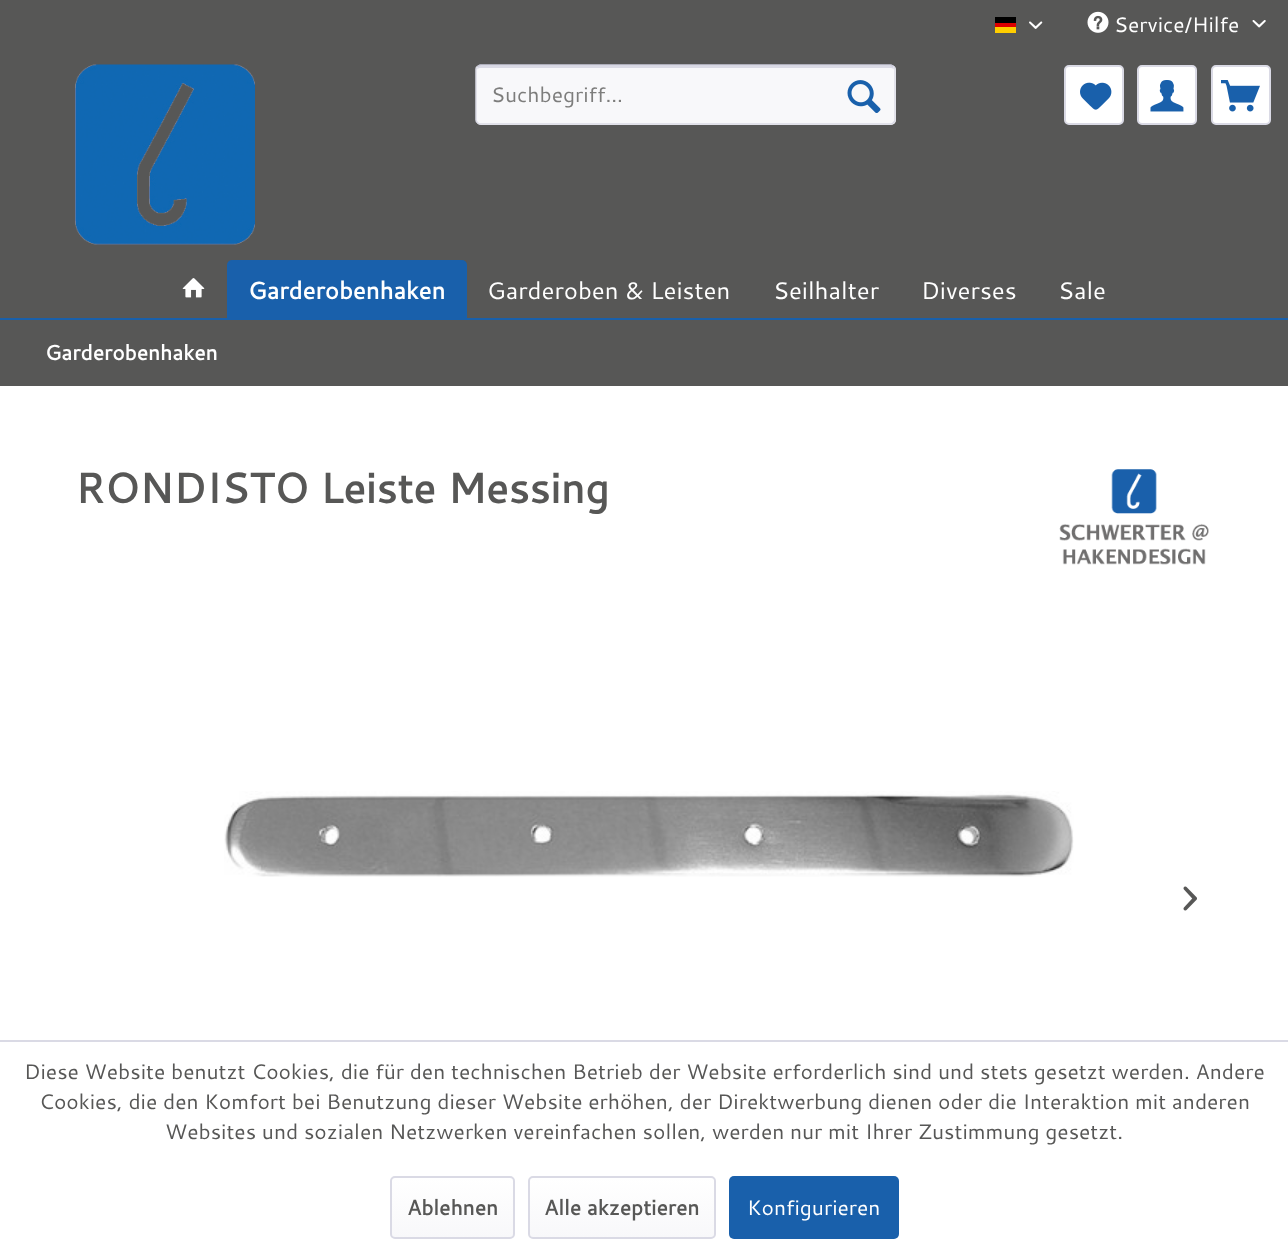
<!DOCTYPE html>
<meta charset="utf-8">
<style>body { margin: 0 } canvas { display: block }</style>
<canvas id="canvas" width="1288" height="1254"></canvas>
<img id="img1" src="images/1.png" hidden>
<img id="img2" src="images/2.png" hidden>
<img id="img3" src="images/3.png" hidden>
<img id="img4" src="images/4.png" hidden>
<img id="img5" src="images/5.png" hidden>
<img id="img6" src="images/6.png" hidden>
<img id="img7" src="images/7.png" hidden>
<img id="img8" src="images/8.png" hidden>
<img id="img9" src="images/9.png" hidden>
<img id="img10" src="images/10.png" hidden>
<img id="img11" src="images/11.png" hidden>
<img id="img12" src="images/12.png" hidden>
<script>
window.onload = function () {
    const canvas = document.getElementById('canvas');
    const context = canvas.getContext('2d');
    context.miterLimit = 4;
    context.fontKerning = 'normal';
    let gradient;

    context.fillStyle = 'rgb(87, 87, 86)';
    context.fillRect(0, 0, 1288, 1254);
    context.fillStyle = 'rgb(0, 0, 0)';
    context.fillRect(995, 17, 21, 6);
    context.fillStyle = 'rgb(221, 0, 0)';
    context.fillRect(995, 23, 21, 4);
    context.fillStyle = 'rgb(255, 206, 0)';
    context.fillRect(995, 27, 21, 6);
    context.drawImage(document.getElementById('img1'), 1029, 21, 14, 8);
    context.drawImage(document.getElementById('img2'), 1087, 11, 22, 22);
    context.drawImage(document.getElementById('img3'), 1252, 20, 14, 8);
    context.drawImage(document.getElementById('img4'), 75, 64, 180, 181);
    context.fillStyle = 'rgb(248, 248, 250)';
    context.beginPath();
    context.roundRect(476, 65, 420, 60, 5);
    context.fill();
    context.fillStyle = 'rgb(218, 218, 229)';
    context.beginPath();
    context.moveTo(480, 68);
    context.lineTo(891, 68);
    context.bezierCurveTo(893, 68, 894, 69, 894, 70);
    context.bezierCurveTo(894, 68, 893, 66, 891, 66);
    context.lineTo(480, 66);
    context.bezierCurveTo(478, 66, 477, 68, 477, 70);
    context.bezierCurveTo(477, 69, 478, 68, 480, 68);
    context.closePath();
    context.fill();
    context.beginPath();
    context.moveTo(477.5, 66.5);
    context.lineTo(480, 65);
    context.lineTo(891, 65);
    context.lineTo(893.5, 66.5);
    context.strokeStyle = 'rgb(203, 203, 219)';
    context.lineWidth = 1.5;
    context.stroke();
    context.beginPath();
    context.moveTo(893.5, 66.5);
    context.bezierCurveTo(894.5, 67, 895, 68, 895, 69);
    context.lineTo(895, 120);
    context.bezierCurveTo(895, 121, 894.5, 122, 893.5, 122.5);
    context.bezierCurveTo(893, 123.5, 892, 124, 891, 124);
    context.lineTo(480, 124);
    context.bezierCurveTo(479, 124, 478, 123.5, 477.5, 122.5);
    context.bezierCurveTo(476.5, 122, 476, 121, 476, 120);
    context.lineTo(476, 69);
    context.bezierCurveTo(476, 68, 476.5, 67, 477.5, 66.5);
    context.strokeStyle = 'rgb(218, 218, 229)';
    context.stroke();
    context.drawImage(document.getElementById('img5'), 847, 80, 34, 33);
    context.fillStyle = 'rgb(255, 255, 255)';
    context.beginPath();
    context.roundRect(1065, 66, 58, 58, 4);
    context.fill();
    context.lineWidth = 2;
    context.stroke();
    context.drawImage(document.getElementById('img6'), 1080, 82, 32, 28);
    context.beginPath();
    context.roundRect(1138, 66, 58, 58, 4);
    context.fill();
    context.stroke();
    context.drawImage(document.getElementById('img7'), 1150, 80, 34, 32);
    context.beginPath();
    context.roundRect(1212, 66, 58, 58, 4);
    context.fill();
    context.stroke();
    context.drawImage(document.getElementById('img8'), 1221, 80, 39, 32);
    context.fillStyle = 'rgb(25, 96, 171)';
    context.fillRect(0, 318, 1288, 2);
    context.drawImage(document.getElementById('img9'), 182, 278, 23, 20);
    context.beginPath();
    context.roundRect(227, 260, 240, 58, [5, 5, 0, 0]);
    context.fill();
    context.fillStyle = 'rgb(255, 255, 255)';
    context.fillRect(0, 386, 1288, 654);
    context.drawImage(document.getElementById('img10'), 1059, 469, 150, 96);
    context.drawImage(document.getElementById('img11'), 224, 791, 850, 86);
    context.drawImage(document.getElementById('img12'), 1183, 886, 14, 25);
    context.fillRect(0, 1042, 1288, 212);
    context.fillStyle = 'rgb(218, 218, 229)';
    context.fillRect(0, 1040, 1288, 2);
    gradient = context.createLinearGradient(452, 1178, 452, 1238);
    gradient.addColorStop(0, 'rgb(255, 255, 255)');
    gradient.addColorStop(1, 'rgb(248, 248, 250)');
    context.fillStyle = gradient;
    context.beginPath();
    context.roundRect(392, 1178, 121, 60, 3);
    context.fill();
    context.beginPath();
    context.roundRect(391, 1177, 123, 61, 4);
    context.stroke();
    gradient = context.createLinearGradient(622, 1178, 622, 1238);
    gradient.addColorStop(0, 'rgb(255, 255, 255)');
    gradient.addColorStop(1, 'rgb(248, 248, 250)');
    context.fillStyle = gradient;
    context.beginPath();
    context.roundRect(530, 1178, 184, 60, 3);
    context.fill();
    context.beginPath();
    context.roundRect(529, 1177, 186, 61, 4);
    context.stroke();
    context.fillStyle = 'rgb(25, 96, 171)';
    context.beginPath();
    context.roundRect(729, 1176, 170, 63, 5);
    context.fill();
    context.font = '21px Cantarell';
    context.fillStyle = 'rgb(255, 255, 255)';
    context.fillText('Service/Hilfe', 1114, 32);
    context.fillStyle = 'rgb(125, 125, 124)';
    context.fillText('Suchbegriff...', 491, 102);
    context.font = 'bold 24px Cantarell';
    context.fillStyle = 'rgb(255, 255, 255)';
    context.fillText('Garderobenhaken', 248, 299);
    context.font = '24px Cantarell';
    context.fillText('Garderoben & Leisten', 487, 299);
    context.fillText('Seilhalter', 773, 299);
    context.fillText('Diverses', 921, 299);
    context.fillText('Sale', 1058, 299);
    context.font = 'bold 21px Cantarell';
    context.fillText('Garderobenhaken', 45, 360);
    context.font = 'bold 42px Cantarell';
    context.fillStyle = 'rgb(87, 87, 86)';
    context.fillText('RONDISTO Leiste Messing', 75, 503);
    context.font = '21px Cantarell';
    context.fillText('Diese Website benutzt Cookies, die für den technischen Betrieb der Website erforderlich sind und stets gesetzt werden. Andere', 24, 1079);
    context.fillText('Cookies, die den Komfort bei Benutzung dieser Website erhöhen, der Direktwerbung dienen oder die Interaktion mit anderen', 39, 1109);
    context.fillText('Websites und sozialen Netzwerken vereinfachen sollen, werden nur mit Ihrer Zustimmung gesetzt.', 165, 1139);
    context.font = 'bold 21px Cantarell';
    context.fillText('Ablehnen', 407, 1215);
    context.fillText('Alle akzeptieren', 544, 1215);
    context.font = '21px Cantarell';
    context.fillStyle = 'rgb(255, 255, 255)';
    context.fillText('Konfigurieren', 747, 1215);
};
</script>
